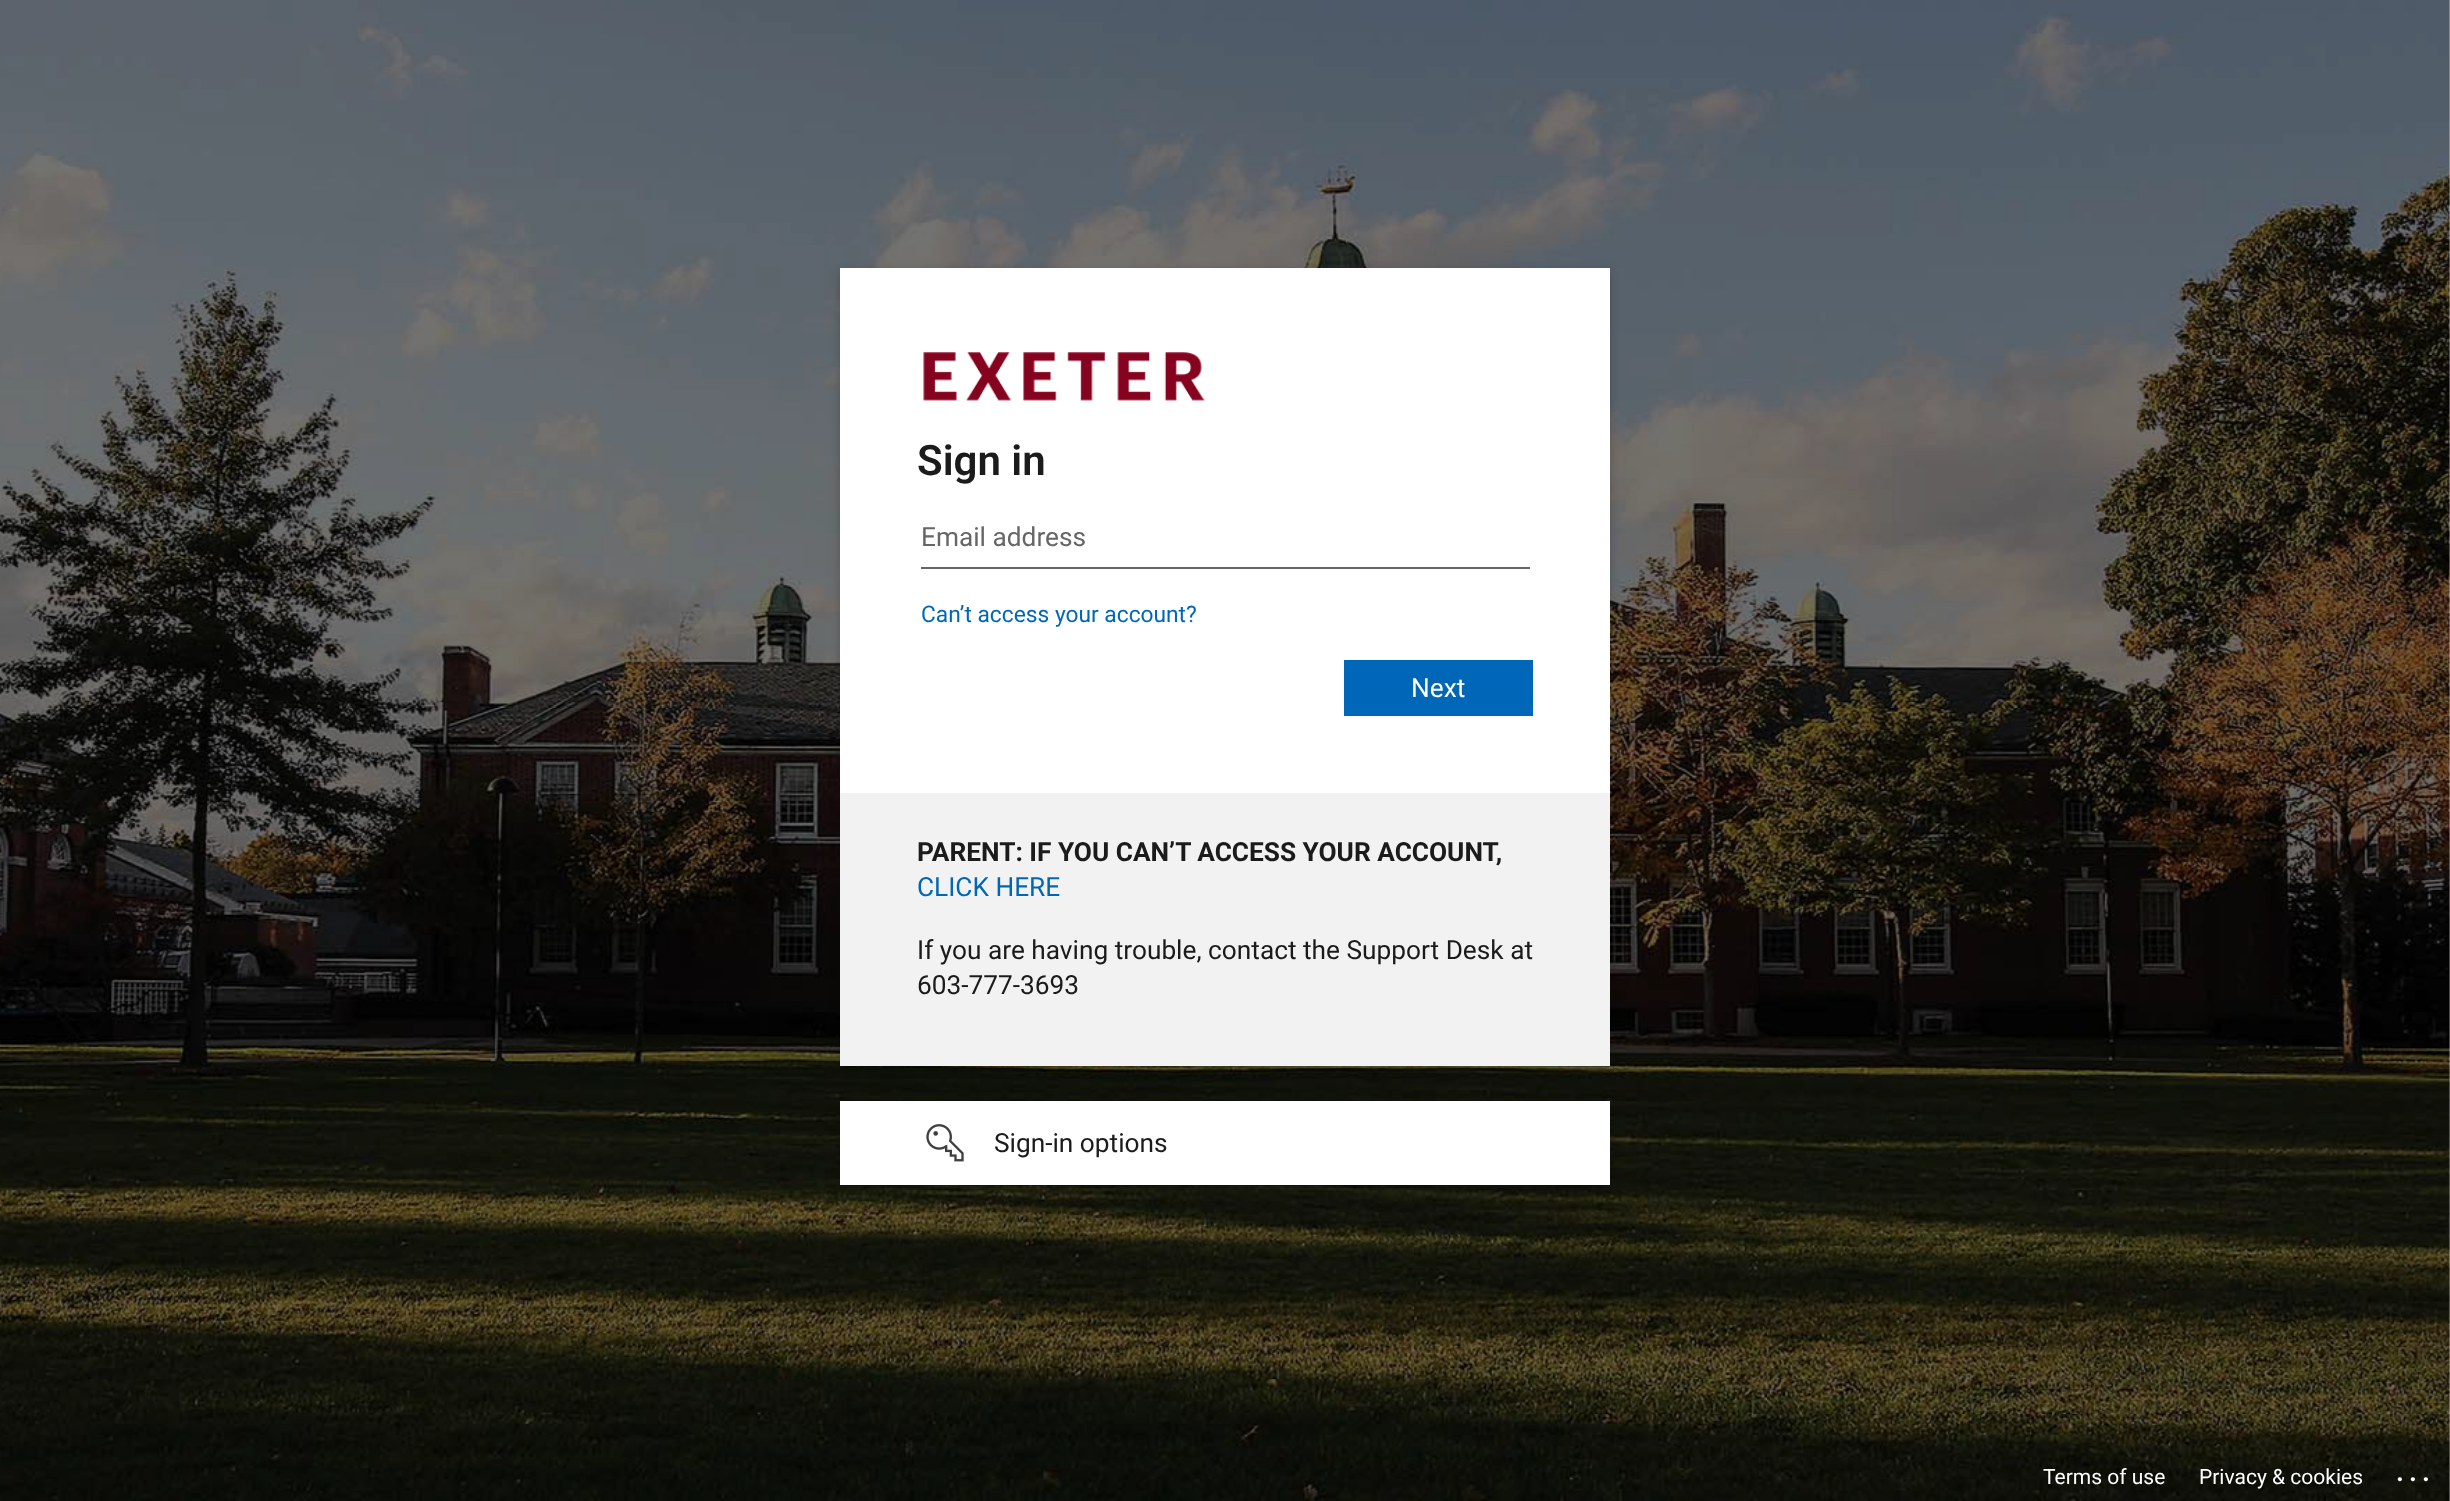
<!DOCTYPE html>
<meta charset="utf-8">
<style>body { margin: 0 } canvas { display: block }</style>
<canvas id="canvas" width="2450" height="1501"></canvas>
<img id="img1" src="images/1.png" hidden>
<img id="img2" src="images/2.png" hidden>
<img id="img3" src="images/3.png" hidden>
<script>
window.onload = function () {
    const canvas = document.getElementById('canvas');
    const context = canvas.getContext('2d');
    context.miterLimit = 4;
    context.fontKerning = 'normal';

    context.fillStyle = 'rgb(255, 255, 255)';
    context.fillRect(0, 0, 2450, 1501);
    context.drawImage(document.getElementById('img1'), 0, 0, 2450, 1501);
    context.fillStyle = 'rgba(0, 0, 0, 0.2)';
    context.filter = 'blur(5px)';
    context.beginPath();
    context.rect(840, 271, 770, 798);
    context.fill();
    context.filter = 'none';
    context.fillStyle = 'rgb(255, 255, 255)';
    context.fillRect(840, 268, 770, 525);
    context.drawImage(document.getElementById('img2'), 923, 352, 282, 49);
    context.fillStyle = 'rgb(102, 102, 102)';
    context.fillRect(921, 567, 609, 2);
    context.fillStyle = 'rgb(0, 103, 184)';
    context.fillRect(1344, 660, 189, 56);
    context.fillStyle = 'rgb(242, 242, 242)';
    context.fillRect(840, 793, 770, 273);
    context.fillStyle = 'rgba(0, 0, 0, 0.2)';
    context.filter = 'blur(5px)';
    context.beginPath();
    context.rect(840, 1104, 770, 84);
    context.fill();
    context.filter = 'none';
    context.fillStyle = 'rgb(255, 255, 255)';
    context.fillRect(840, 1101, 770, 84);
    context.drawImage(document.getElementById('img3'), 926, 1124, 38, 38);
    context.font = '600 42px Roboto';
    context.fillStyle = 'rgb(27, 27, 27)';
    context.fillText('Sign in', 917, 475);
    context.font = '26.25px Roboto';
    context.fillStyle = 'rgb(102, 102, 102)';
    context.fillText('Email address', 921, 546);
    context.font = '22.75px Roboto';
    context.fillStyle = 'rgb(0, 103, 184)';
    context.fillText('Can’t access your account?', 921, 622);
    context.font = '26.25px Roboto';
    context.fillStyle = 'rgb(255, 255, 255)';
    context.fillText('Next', 1411, 697);
    context.font = 'bold 26.25px Roboto';
    context.fillStyle = 'rgb(27, 27, 27)';
    context.fillText('PARENT: IF YOU CAN’T ACCESS YOUR ACCOUNT,', 917, 861);
    context.font = '26.25px Roboto';
    context.fillStyle = 'rgb(0, 103, 184)';
    context.fillText('CLICK HERE', 917, 896);
    context.fillStyle = 'rgb(27, 27, 27)';
    context.fillText('If you are having trouble, contact the Support Desk at', 917, 959);
    context.fillText('603-777-3693', 917, 994);
    context.fillText('Sign-in options', 994, 1152);
    context.font = '21px Roboto';
    context.fillStyle = 'rgb(255, 255, 255)';
    context.fillText('Terms of use', 2043, 1484);
    context.fillText('Privacy & cookies', 2199, 1484);
    context.letterSpacing = '5px';
    context.font = '600 28px Roboto';
    context.fillText('...', 2396, 1481);
};
</script>
